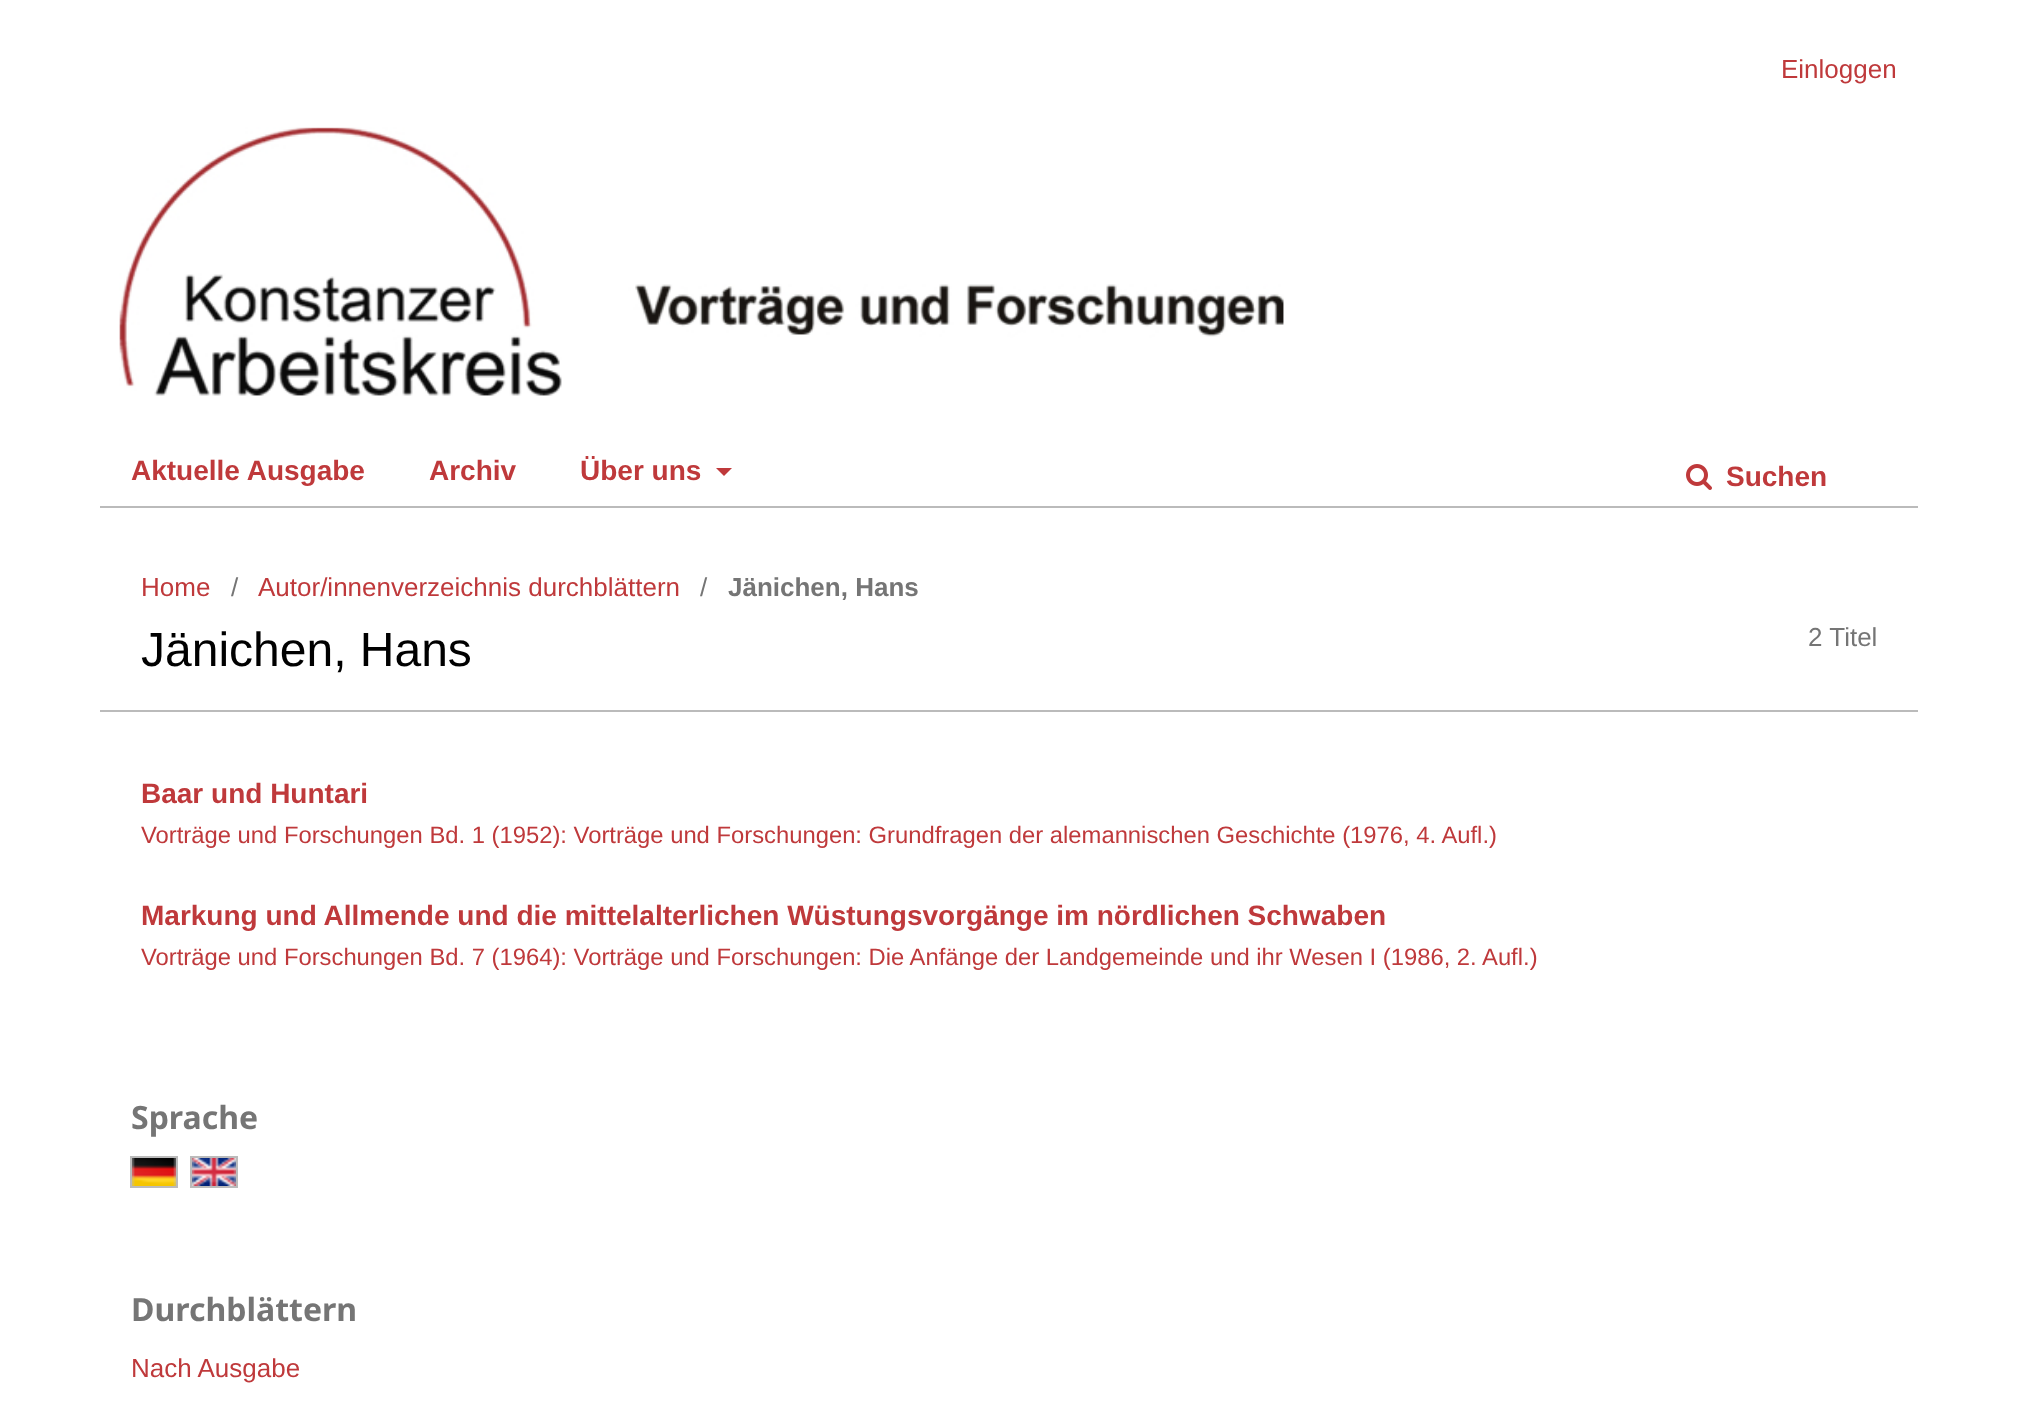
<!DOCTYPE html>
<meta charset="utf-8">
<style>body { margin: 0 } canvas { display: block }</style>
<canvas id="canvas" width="2018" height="1420"></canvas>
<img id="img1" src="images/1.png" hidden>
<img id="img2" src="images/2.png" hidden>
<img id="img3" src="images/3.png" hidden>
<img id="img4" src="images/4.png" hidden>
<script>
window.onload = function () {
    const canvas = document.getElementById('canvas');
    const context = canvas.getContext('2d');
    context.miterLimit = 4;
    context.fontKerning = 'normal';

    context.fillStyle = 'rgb(255, 255, 255)';
    context.fillRect(0, 0, 2018, 1420);
    context.fillStyle = 'rgb(187, 187, 187)';
    context.fillRect(100, 506, 1818, 2);
    context.fillStyle = 'rgb(191, 57, 59)';
    context.beginPath();
    context.moveTo(716, 468);
    context.lineTo(732, 468);
    context.lineTo(724, 476);
    context.closePath();
    context.fill();
    context.drawImage(document.getElementById('img1'), 1686, 464, 26, 26);
    context.drawImage(document.getElementById('img2'), 119, 127, 1165, 269);
    context.fillStyle = 'rgb(187, 187, 187)';
    context.fillRect(100, 710, 1818, 2);
    context.strokeStyle = 'rgb(187, 187, 187)';
    context.lineWidth = 2;
    context.strokeRect(131, 1157, 46, 30);
    context.drawImage(document.getElementById('img3'), 132, 1158, 44, 28);
    context.strokeRect(191, 1157, 46, 30);
    context.drawImage(document.getElementById('img4'), 192, 1158, 44, 28);
    context.font = '26px Liberation Sans';
    context.fillStyle = 'rgb(191, 57, 59)';
    context.fillText('Einloggen', 1781, 78);
    context.font = 'bold 28px Liberation Sans';
    context.fillText('Aktuelle Ausgabe', 131, 480);
    context.fillText('Archiv', 429, 480);
    context.fillText('Über uns', 580, 480);
    context.fillText('Suchen', 1726, 486);
    context.font = '26px Liberation Sans';
    context.fillText('Home', 141, 596);
    context.fillStyle = 'rgb(117, 117, 117)';
    context.fillText('/', 231, 596);
    context.fillStyle = 'rgb(191, 57, 59)';
    context.fillText('Autor/innenverzeichnis durchblättern', 258, 596);
    context.fillStyle = 'rgb(117, 117, 117)';
    context.fillText('/', 700, 596);
    context.font = 'bold 26px Liberation Sans';
    context.fillText('Jänichen, Hans', 728, 596);
    context.font = '48px Liberation Sans';
    context.fillStyle = 'rgb(0, 0, 0)';
    context.fillText('Jänichen, Hans', 141, 666);
    context.font = '26px Liberation Sans';
    context.fillStyle = 'rgb(117, 117, 117)';
    context.fillText('2 Titel', 1808, 646);
    context.font = 'bold 28px Liberation Sans';
    context.fillStyle = 'rgb(191, 57, 59)';
    context.fillText('Baar und Huntari', 141, 803);
    context.font = '23.8px Liberation Sans';
    context.fillText('Vorträge und Forschungen Bd. 1 (1952): Vorträge und Forschungen: Grundfragen der alemannischen Geschichte (1976, 4. Aufl.)', 141, 843);
    context.font = 'bold 28px Liberation Sans';
    context.fillText('Markung und Allmende und die mittelalterlichen Wüstungsvorgänge im nördlichen Schwaben', 141, 925);
    context.font = '23.8px Liberation Sans';
    context.fillText('Vorträge und Forschungen Bd. 7 (1964): Vorträge und Forschungen: Die Anfänge der Landgemeinde und ihr Wesen I (1986, 2. Aufl.)', 141, 965);
    context.font = 'bold 32px Noto Sans';
    context.fillStyle = 'rgb(117, 117, 117)';
    context.fillText('Sprache', 131, 1129);
    context.fillText('Durchblättern', 131, 1321);
    context.font = '26px Liberation Sans';
    context.fillStyle = 'rgb(191, 57, 59)';
    context.fillText('Nach Ausgabe', 131, 1377);
};
</script>
